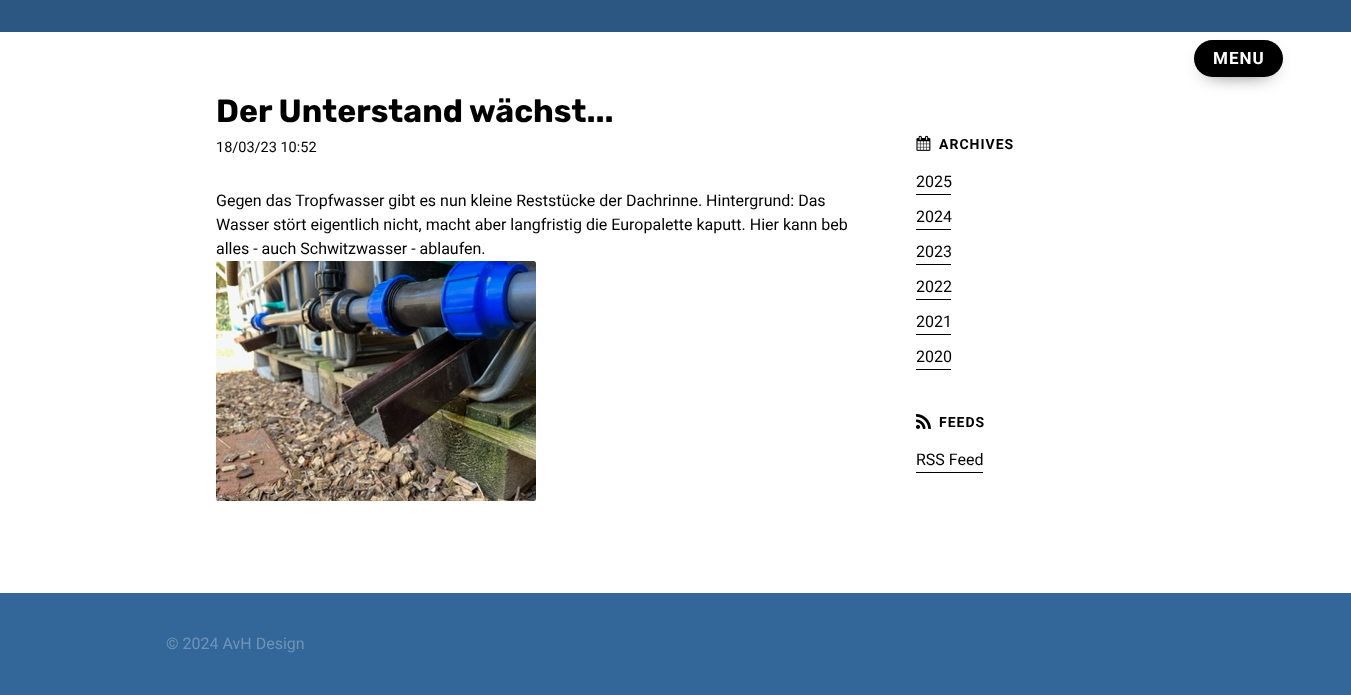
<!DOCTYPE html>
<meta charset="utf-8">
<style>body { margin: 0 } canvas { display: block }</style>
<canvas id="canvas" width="1351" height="695"></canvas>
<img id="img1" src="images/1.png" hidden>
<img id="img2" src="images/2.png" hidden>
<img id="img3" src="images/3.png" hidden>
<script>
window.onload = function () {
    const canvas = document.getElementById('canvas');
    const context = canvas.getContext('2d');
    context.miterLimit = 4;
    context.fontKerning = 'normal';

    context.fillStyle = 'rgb(51, 102, 153)';
    context.fillRect(0, 0, 1351, 695);
    context.fillStyle = 'rgb(43, 87, 130)';
    context.fillRect(0, 0, 1351, 32);
    context.fillStyle = 'rgb(255, 255, 255)';
    context.fillRect(0, 32, 1351, 561);
    context.fillStyle = 'rgb(0, 0, 0)';
    context.filter = 'blur(10px)';
    context.beginPath();
    context.roundRect(1207, 60, 63, 11, 5.5);
    context.fill();
    context.filter = 'none';
    context.beginPath();
    context.roundRect(1194, 40, 89, 37, 18.5);
    context.fill();
    context.drawImage(document.getElementById('img1'), 216, 261, 320, 240);
    context.drawImage(document.getElementById('img2'), 916, 135, 15, 16);
    context.fillRect(916, 194, 35, 1);
    context.fillRect(916, 229, 35, 1);
    context.fillRect(916, 264, 35, 1);
    context.fillRect(916, 299, 35, 1);
    context.fillRect(916, 334, 35, 1);
    context.fillRect(916, 369, 35, 1);
    context.drawImage(document.getElementById('img3'), 916, 413, 15, 16);
    context.fillRect(916, 472, 67, 1);
    context.letterSpacing = '1px';
    context.font = 'bold 17px Roboto';
    context.fillStyle = 'rgb(255, 255, 255)';
    context.fillText('MENU', 1213, 64);
    context.letterSpacing = '0px';
    context.font = 'bold 32px Rubik';
    context.fillStyle = 'rgb(0, 0, 0)';
    context.fillText('Der Unterstand wächst...', 216, 122);
    context.font = '14.5px Roboto';
    context.fillText('18/03/23 10:52', 216, 152);
    context.font = '16px Roboto';
    context.fillText('Gegen das Tropfwasser gibt es nun kleine Reststücke der Dachrinne. Hintergrund: Das', 216, 206);
    context.fillText('Wasser stört eigentlich nicht, macht aber langfristig die Europalette kaputt. Hier kann beb', 216, 230);
    context.fillText('alles - auch Schwitzwasser - ablaufen.', 216, 254);
    context.letterSpacing = '1px';
    context.font = 'bold 14px Roboto';
    context.fillText('ARCHIVES', 939, 149);
    context.letterSpacing = '0px';
    context.font = '16px Roboto';
    context.fillText('2025', 916, 187);
    context.fillText('2024', 916, 222);
    context.fillText('2023', 916, 257);
    context.fillText('2022', 916, 292);
    context.fillText('2021', 916, 327);
    context.fillText('2020', 916, 362);
    context.letterSpacing = '1px';
    context.font = 'bold 14px Roboto';
    context.fillText('FEEDS', 939, 427);
    context.letterSpacing = '0px';
    context.font = '16px Roboto';
    context.fillText('RSS Feed', 916, 465);
    context.fillStyle = 'rgb(112, 148, 184)';
    context.fillText('© 2024 AvH Design', 166, 649);
};
</script>
